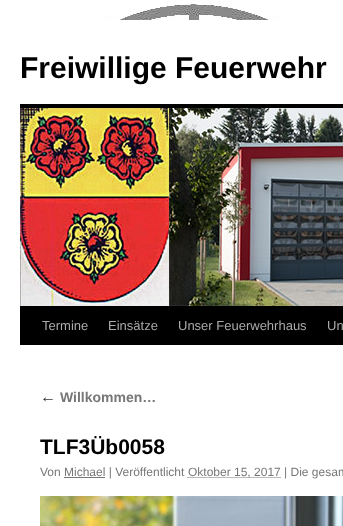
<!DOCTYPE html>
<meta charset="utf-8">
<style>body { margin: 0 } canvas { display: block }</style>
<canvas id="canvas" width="343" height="526"></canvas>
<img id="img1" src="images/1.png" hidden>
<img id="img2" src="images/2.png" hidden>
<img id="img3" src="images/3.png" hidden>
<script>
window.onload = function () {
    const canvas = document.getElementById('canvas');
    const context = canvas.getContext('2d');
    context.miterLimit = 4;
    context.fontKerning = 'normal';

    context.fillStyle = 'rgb(255, 255, 255)';
    context.fillRect(0, 0, 343, 526);
    context.drawImage(document.getElementById('img1'), 0, 0, 343, 20);
    context.fillStyle = 'rgb(0, 0, 0)';
    context.fillRect(20, 104, 323, 4);
    context.fillRect(20, 306, 323, 39);
    context.drawImage(document.getElementById('img2'), 20, 108, 323, 198);
    context.beginPath();
    context.moveTo(187.5, 477.5);
    context.lineTo(280.5, 477.5);
    context.strokeStyle = 'rgb(119, 119, 119)';
    context.setLineDash([1, 1]);
    context.stroke();
    context.fillStyle = 'rgb(119, 119, 119)';
    context.fillRect(64, 477, 41, 1);
    context.drawImage(document.getElementById('img3'), 40, 496, 303, 30);
    context.font = 'bold 30px Liberation Sans';
    context.fillStyle = 'rgb(0, 0, 0)';
    context.fillText('Freiwillige Feuerwehr', 20, 78);
    context.font = '13px Liberation Sans';
    context.fillStyle = 'rgb(170, 170, 170)';
    context.fillText('Termine', 42, 330);
    context.fillText('Einsätze', 108, 330);
    context.fillText('Unser Feuerwehrhaus', 178, 330);
    context.fillText('Un', 327, 330);
    context.font = 'italic 16px Liberation Serif';
    context.fillStyle = 'rgb(51, 51, 51)';
    context.fillText('←', 40, 402);
    context.font = 'bold 14px Liberation Sans';
    context.fillStyle = 'rgb(119, 119, 119)';
    context.fillText('Willkommen…', 60, 402);
    context.font = 'bold 21px Liberation Sans';
    context.fillStyle = 'rgb(0, 0, 0)';
    context.fillText('TLF3Üb0058', 40, 454);
    context.font = '12px Liberation Sans';
    context.fillStyle = 'rgb(119, 119, 119)';
    context.fillText('Von Michael | Veröffentlicht', 40, 476);
    context.fillText('Oktober 15, 2017 | Die gesam', 188, 476);
};
</script>
